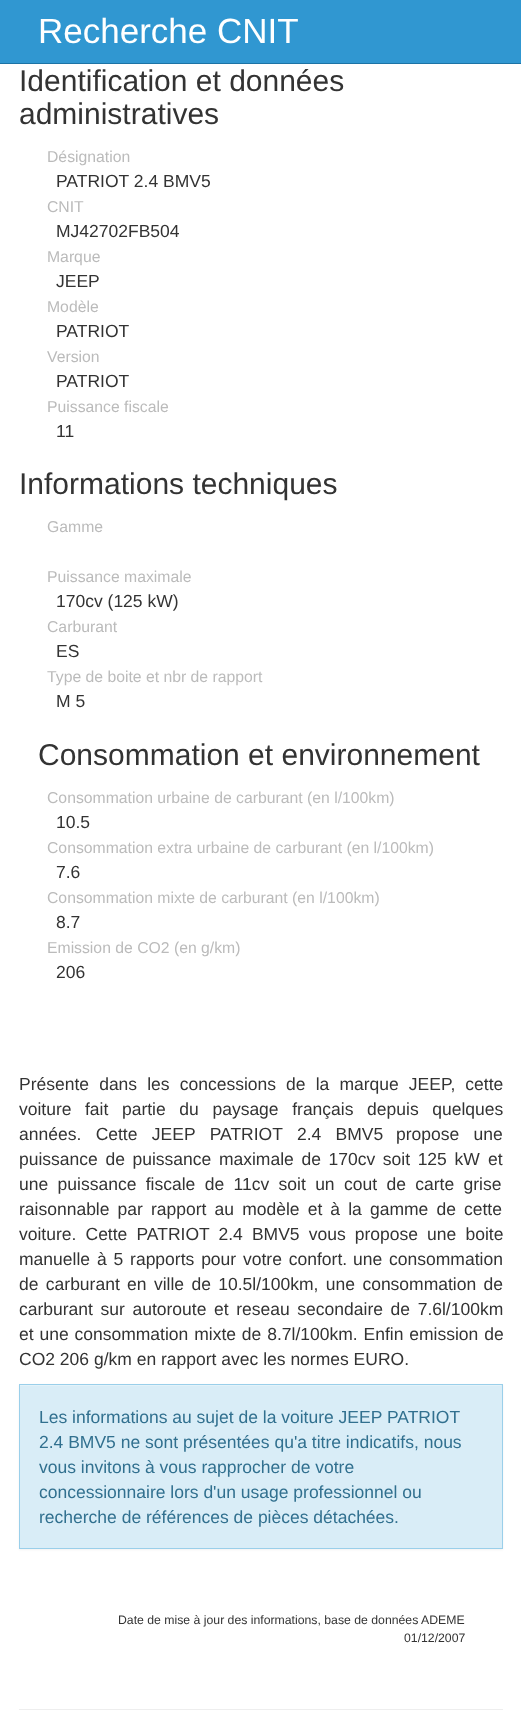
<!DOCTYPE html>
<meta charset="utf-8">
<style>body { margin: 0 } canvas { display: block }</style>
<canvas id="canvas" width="521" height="1722"></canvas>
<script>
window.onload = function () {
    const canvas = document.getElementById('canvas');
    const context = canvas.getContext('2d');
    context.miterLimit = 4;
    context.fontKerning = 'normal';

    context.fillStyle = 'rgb(255, 255, 255)';
    context.fillRect(0, 0, 521, 1722);
    context.fillStyle = 'rgb(48, 151, 209)';
    context.fillRect(0, 0, 521, 63);
    context.fillStyle = 'rgb(28, 115, 165)';
    context.fillRect(0, 63, 521, 1);
    context.fillStyle = 'rgba(0, 0, 0, 0.05)';
    context.filter = 'blur(1px)';
    context.beginPath();
    context.rect(19, 1385, 484, 165);
    context.fill();
    context.filter = 'none';
    context.fillStyle = 'rgb(217, 237, 247)';
    context.fillRect(20, 1385, 482, 163);
    context.fillStyle = 'rgb(227, 242, 249)';
    context.fillRect(20, 1385, 481, 1);
    context.strokeStyle = 'rgb(154, 207, 234)';
    context.strokeRect(19.5, 1384.5, 483, 164);
    context.fillStyle = 'rgb(238, 238, 238)';
    context.fillRect(19, 1709, 484, 1);
    context.font = '35px Liberation Sans';
    context.fillStyle = 'rgb(255, 255, 255)';
    context.fillText('Recherche CNIT', 38, 43);
    context.font = '30px Liberation Sans';
    context.fillStyle = 'rgb(51, 51, 51)';
    context.fillText('Identification et données', 19, 91);
    context.fillText('administratives', 19, 124);
    context.font = '15.75px Liberation Sans';
    context.fillStyle = 'rgb(187, 187, 187)';
    context.fillText('Désignation', 47, 162);
    context.font = '17.5px Liberation Sans';
    context.fillStyle = 'rgb(51, 51, 51)';
    context.fillText('PATRIOT 2.4 BMV5', 56, 187);
    context.font = '15.75px Liberation Sans';
    context.fillStyle = 'rgb(187, 187, 187)';
    context.fillText('CNIT', 47, 212);
    context.font = '17.5px Liberation Sans';
    context.fillStyle = 'rgb(51, 51, 51)';
    context.fillText('MJ42702FB504', 56, 237);
    context.font = '15.75px Liberation Sans';
    context.fillStyle = 'rgb(187, 187, 187)';
    context.fillText('Marque', 47, 262);
    context.font = '17.5px Liberation Sans';
    context.fillStyle = 'rgb(51, 51, 51)';
    context.fillText('JEEP', 56, 287);
    context.font = '15.75px Liberation Sans';
    context.fillStyle = 'rgb(187, 187, 187)';
    context.fillText('Modèle', 47, 312);
    context.font = '17.5px Liberation Sans';
    context.fillStyle = 'rgb(51, 51, 51)';
    context.fillText('PATRIOT', 56, 337);
    context.font = '15.75px Liberation Sans';
    context.fillStyle = 'rgb(187, 187, 187)';
    context.fillText('Version', 47, 362);
    context.font = '17.5px Liberation Sans';
    context.fillStyle = 'rgb(51, 51, 51)';
    context.fillText('PATRIOT', 56, 387);
    context.font = '15.75px Liberation Sans';
    context.fillStyle = 'rgb(187, 187, 187)';
    context.fillText('Puissance fiscale', 47, 412);
    context.font = '17.5px Liberation Sans';
    context.fillStyle = 'rgb(51, 51, 51)';
    context.fillText('11', 56, 437);
    context.font = '30px Liberation Sans';
    context.fillText('Informations techniques', 19, 494);
    context.font = '15.75px Liberation Sans';
    context.fillStyle = 'rgb(187, 187, 187)';
    context.fillText('Gamme', 47, 532);
    context.fillText('Puissance maximale', 47, 582);
    context.font = '17.5px Liberation Sans';
    context.fillStyle = 'rgb(51, 51, 51)';
    context.fillText('170cv (125 kW)', 56, 607);
    context.font = '15.75px Liberation Sans';
    context.fillStyle = 'rgb(187, 187, 187)';
    context.fillText('Carburant', 47, 632);
    context.font = '17.5px Liberation Sans';
    context.fillStyle = 'rgb(51, 51, 51)';
    context.fillText('ES', 56, 657);
    context.font = '15.75px Liberation Sans';
    context.fillStyle = 'rgb(187, 187, 187)';
    context.fillText('Type de boite et nbr de rapport', 47, 682);
    context.font = '17.5px Liberation Sans';
    context.fillStyle = 'rgb(51, 51, 51)';
    context.fillText('M 5', 56, 707);
    context.font = '30px Liberation Sans';
    context.fillText('Consommation et environnement', 38, 765);
    context.font = '15.75px Liberation Sans';
    context.fillStyle = 'rgb(187, 187, 187)';
    context.fillText('Consommation urbaine de carburant (en l/100km)', 47, 803);
    context.font = '17.5px Liberation Sans';
    context.fillStyle = 'rgb(51, 51, 51)';
    context.fillText('10.5', 56, 828);
    context.font = '15.75px Liberation Sans';
    context.fillStyle = 'rgb(187, 187, 187)';
    context.fillText('Consommation extra urbaine de carburant (en l/100km)', 47, 853);
    context.font = '17.5px Liberation Sans';
    context.fillStyle = 'rgb(51, 51, 51)';
    context.fillText('7.6', 56, 878);
    context.font = '15.75px Liberation Sans';
    context.fillStyle = 'rgb(187, 187, 187)';
    context.fillText('Consommation mixte de carburant (en l/100km)', 47, 903);
    context.font = '17.5px Liberation Sans';
    context.fillStyle = 'rgb(51, 51, 51)';
    context.fillText('8.7', 56, 928);
    context.font = '15.75px Liberation Sans';
    context.fillStyle = 'rgb(187, 187, 187)';
    context.fillText('Emission de CO2 (en g/km)', 47, 953);
    context.font = '17.5px Liberation Sans';
    context.fillStyle = 'rgb(51, 51, 51)';
    context.fillText('206', 56, 978);
    context.wordSpacing = '5.25px';
    context.fillText('Présente dans les concessions de la marque JEEP, cette', 19, 1090);
    context.wordSpacing = '0px';
    context.fillText('voiture', 19, 1115);
    context.wordSpacing = '8.75px';
    context.fillText('fait partie du paysage français depuis quelques', 85, 1115);
    context.wordSpacing = '9.5px';
    context.fillText('années. Cette JEEP PATRIOT 2.4 BMV5', 19, 1140);
    context.fillText('propose une', 396, 1140);
    context.wordSpacing = '2.75px';
    context.fillText('puissance de puissance maximale de 170cv soit 125 kW', 19, 1165);
    context.wordSpacing = '0px';
    context.fillText('et', 488, 1165);
    context.wordSpacing = '4.5px';
    context.fillText('une puissance fiscale de 11cv soit un cout de carte grise', 19, 1190);
    context.wordSpacing = '3.25px';
    context.fillText('raisonnable par rapport au modèle et à la gamme de cette', 19, 1215);
    context.wordSpacing = '4.25px';
    context.fillText('voiture. Cette PATRIOT 2.4 BMV5 vous propose une boite', 19, 1240);
    context.wordSpacing = '2px';
    context.fillText('manuelle à 5 rapports pour votre confort.', 19, 1265);
    context.fillText('une consommation', 353, 1265);
    context.wordSpacing = '2.5px';
    context.fillText('de carburant en ville de 10.5l/100km, une consommation de', 19, 1290);
    context.wordSpacing = '2.75px';
    context.fillText('carburant sur autoroute et reseau secondaire de 7.6l/100km', 19, 1315);
    context.wordSpacing = '1px';
    context.fillText('et une consommation mixte de 8.7l/100km. Enfin emission de', 19, 1340);
    context.wordSpacing = '0px';
    context.fillText('CO2 206 g/km en rapport avec les normes EURO.', 19, 1365);
    context.fillStyle = 'rgb(49, 112, 143)';
    context.fillText('Les informations au sujet de la voiture JEEP PATRIOT', 39, 1423);
    context.fillText('2.4 BMV5 ne sont présentées qu\'a titre indicatifs, nous', 39, 1448);
    context.fillText('vous invitons à vous rapprocher de votre', 39, 1473);
    context.fillText('concessionnaire lors d\'un usage professionnel ou', 39, 1498);
    context.fillText('recherche de références de pièces détachées.', 39, 1523);
    context.font = '12.25px Liberation Sans';
    context.fillStyle = 'rgb(51, 51, 51)';
    context.fillText('Date de mise à jour des informations, base de données ADEME', 118, 1624);
    context.fillText('01/12/2007', 404, 1642);
};
</script>
